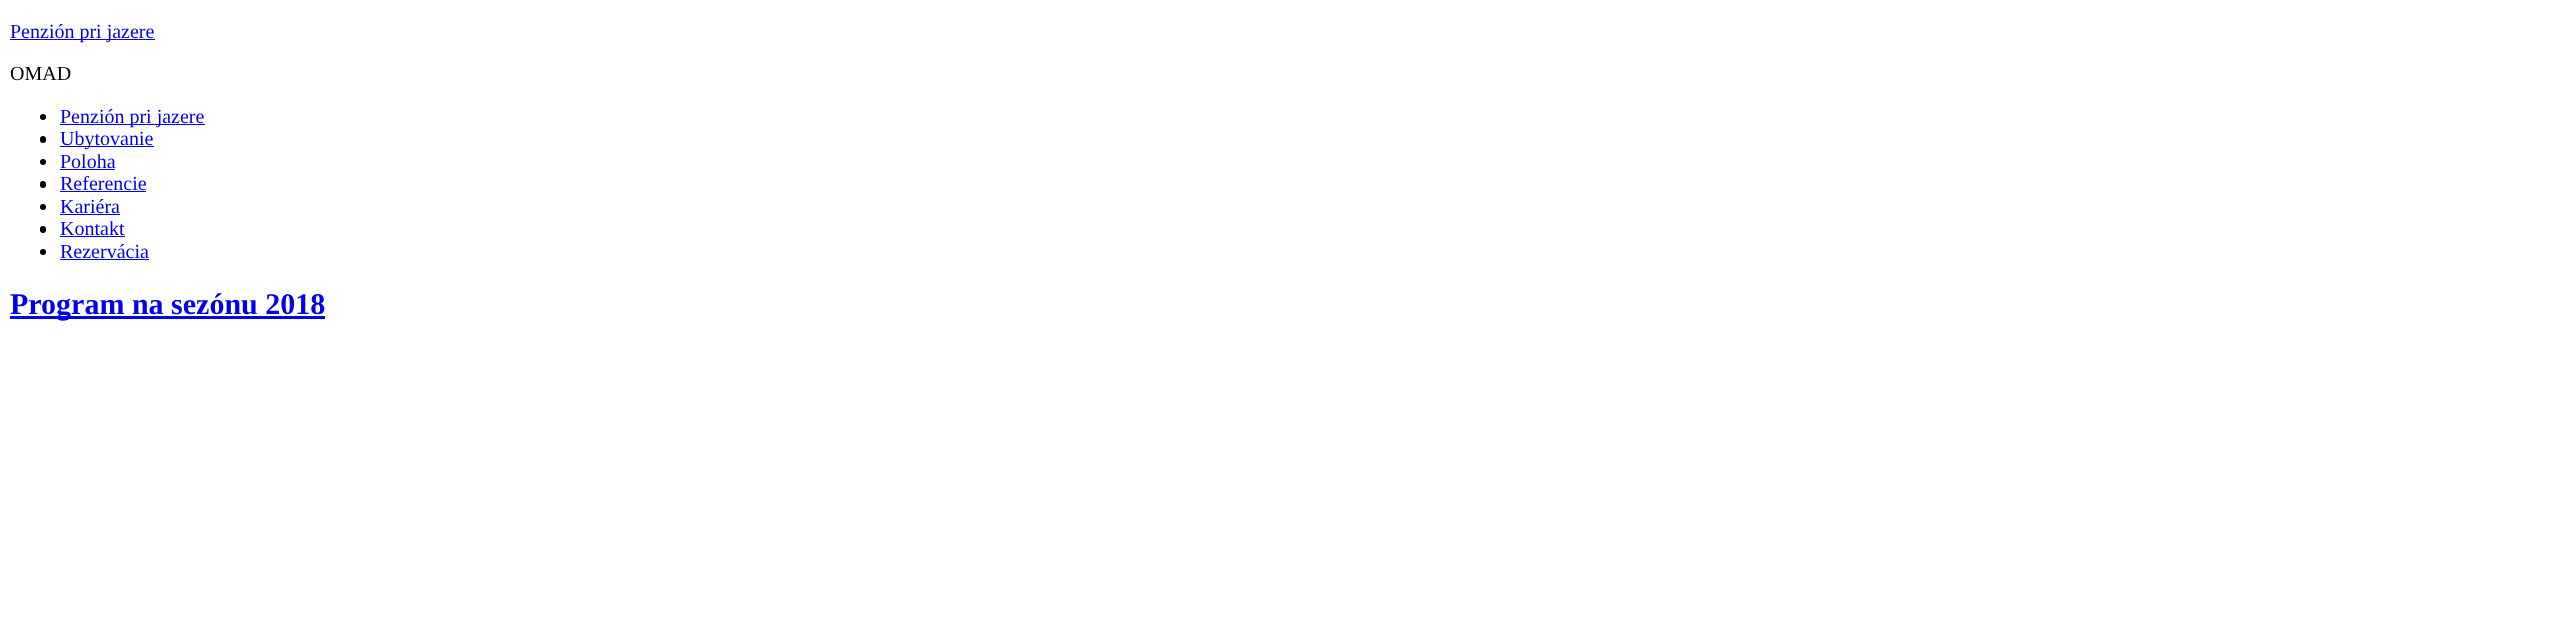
<!DOCTYPE html>
<meta charset="utf-8">
<style>body { margin: 0 } canvas { display: block }</style>
<canvas id="canvas" width="2553" height="635"></canvas>
<script>
window.onload = function () {
    const canvas = document.getElementById('canvas');
    const context = canvas.getContext('2d');
    context.miterLimit = 4;
    context.fontKerning = 'normal';

    context.fillStyle = 'rgb(255, 255, 255)';
    context.fillRect(0, 0, 2553, 635);
    context.fillStyle = 'rgb(0, 0, 238)';
    context.fillRect(10, 39, 145, 1);
    context.fillStyle = 'rgb(0, 0, 0)';
    context.beginPath();
    context.arc(43, 117, 3, 0, 2 * Math.PI);
    context.fill();
    context.fillStyle = 'rgb(0, 0, 238)';
    context.fillRect(60, 124, 145, 1);
    context.fillStyle = 'rgb(0, 0, 0)';
    context.beginPath();
    context.roundRect(40, 136, 6, 7, 3);
    context.fill();
    context.fillStyle = 'rgb(0, 0, 238)';
    context.fillRect(60, 146, 94, 1);
    context.fillStyle = 'rgb(0, 0, 0)';
    context.beginPath();
    context.arc(43, 162, 3, 0, 2 * Math.PI);
    context.fill();
    context.fillStyle = 'rgb(0, 0, 238)';
    context.fillRect(60, 169, 55, 1);
    context.fillStyle = 'rgb(0, 0, 0)';
    context.beginPath();
    context.roundRect(40, 181, 6, 7, 3);
    context.fill();
    context.fillStyle = 'rgb(0, 0, 238)';
    context.fillRect(60, 191, 86, 1);
    context.fillStyle = 'rgb(0, 0, 0)';
    context.beginPath();
    context.arc(43, 207, 3, 0, 2 * Math.PI);
    context.fill();
    context.fillStyle = 'rgb(0, 0, 238)';
    context.fillRect(60, 214, 60, 1);
    context.fillStyle = 'rgb(0, 0, 0)';
    context.beginPath();
    context.roundRect(40, 226, 6, 7, 3);
    context.fill();
    context.fillStyle = 'rgb(0, 0, 238)';
    context.fillRect(60, 236, 65, 1);
    context.fillStyle = 'rgb(0, 0, 0)';
    context.beginPath();
    context.arc(43, 252, 3, 0, 2 * Math.PI);
    context.fill();
    context.fillStyle = 'rgb(0, 0, 238)';
    context.fillRect(60, 259, 89, 1);
    context.fillRect(10, 316, 315, 3);
    context.font = '20px Liberation Serif';
    context.fillText('Penzión pri jazere', 10, 38);
    context.fillStyle = 'rgb(0, 0, 0)';
    context.fillText('OMAD', 10, 80);
    context.fillStyle = 'rgb(0, 0, 238)';
    context.fillText('Penzión pri jazere', 60, 123);
    context.fillText('Ubytovanie', 60, 145);
    context.fillText('Poloha', 60, 168);
    context.fillText('Referencie', 60, 190);
    context.fillText('Kariéra', 60, 213);
    context.fillText('Kontakt', 60, 235);
    context.fillText('Rezervácia', 60, 258);
    context.font = 'bold 30px Liberation Serif';
    context.fillText('Program na sezónu 2018', 10, 314);
};
</script>
